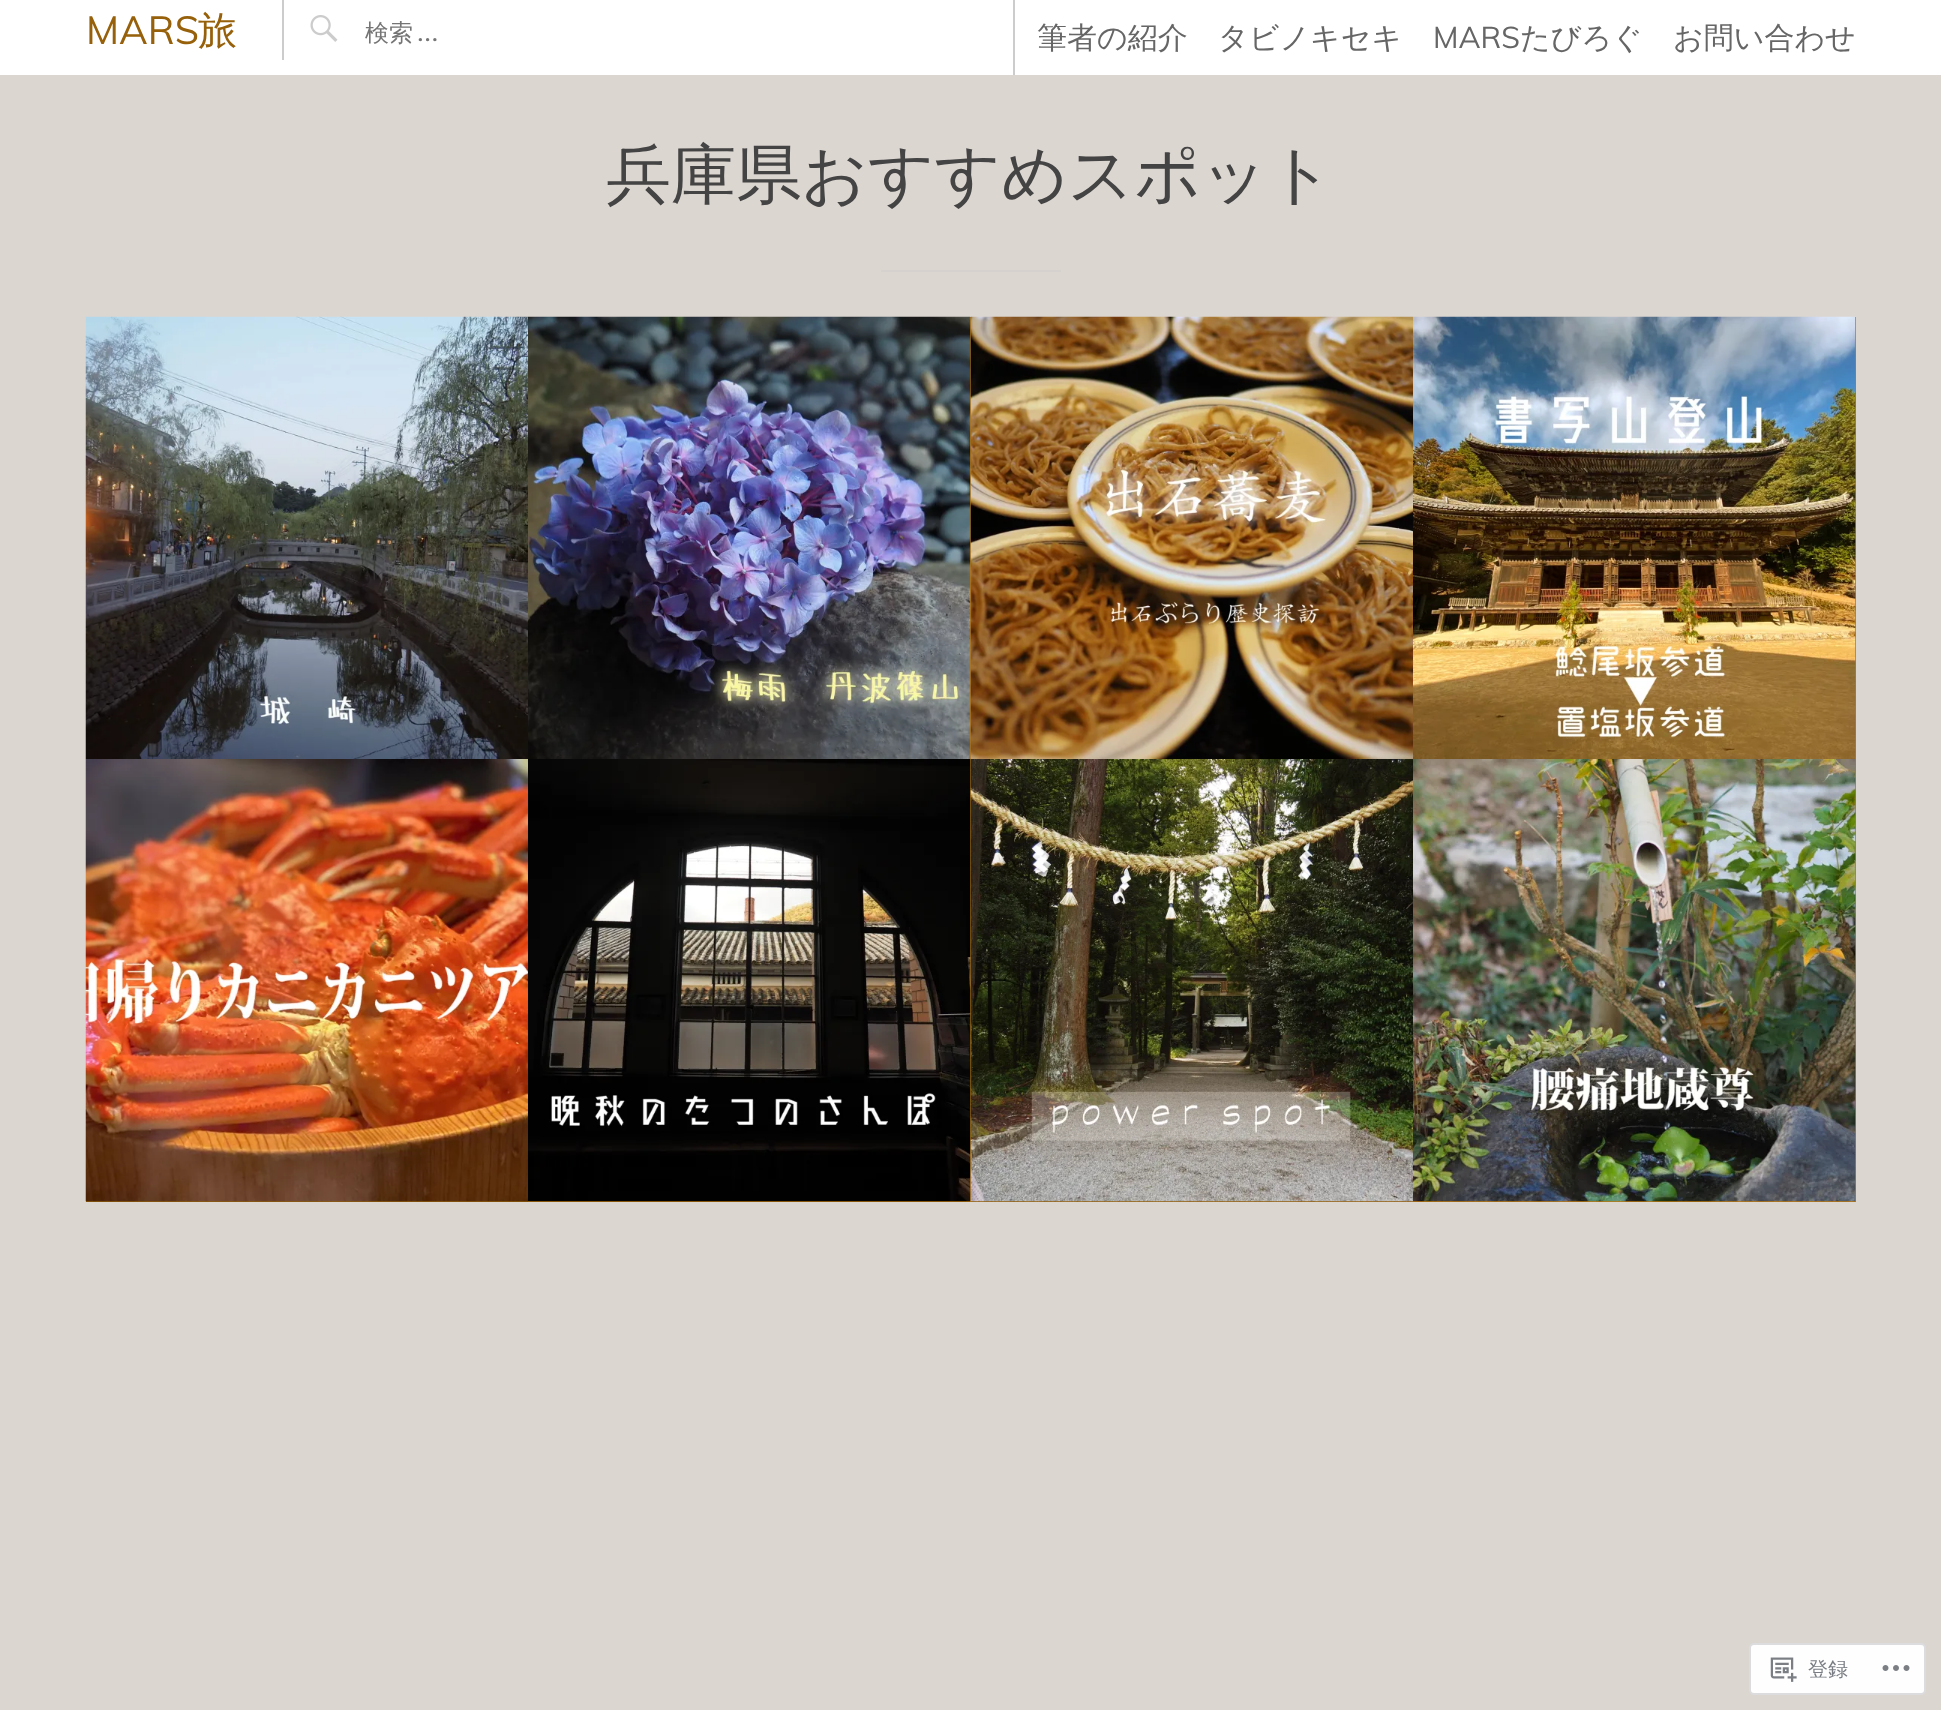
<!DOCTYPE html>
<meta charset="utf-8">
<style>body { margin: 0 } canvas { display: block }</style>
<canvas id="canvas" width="1941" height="1710"></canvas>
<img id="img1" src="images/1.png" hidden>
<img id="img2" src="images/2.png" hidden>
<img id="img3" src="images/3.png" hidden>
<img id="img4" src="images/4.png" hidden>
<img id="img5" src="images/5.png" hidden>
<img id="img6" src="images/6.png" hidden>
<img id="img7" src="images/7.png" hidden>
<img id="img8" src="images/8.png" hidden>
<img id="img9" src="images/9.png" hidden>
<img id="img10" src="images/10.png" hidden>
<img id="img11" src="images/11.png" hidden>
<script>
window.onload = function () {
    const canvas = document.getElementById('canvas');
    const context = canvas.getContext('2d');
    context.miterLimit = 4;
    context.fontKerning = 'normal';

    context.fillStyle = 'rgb(220, 214, 209)';
    context.fillRect(0, 0, 1941, 1710);
    context.fillStyle = 'rgb(255, 255, 255)';
    context.fillRect(0, 0, 1941, 75);
    context.fillStyle = 'rgb(204, 204, 204)';
    context.fillRect(282, 0, 2, 60);
    context.drawImage(document.getElementById('img1'), 310, 15, 28, 27);
    context.fillRect(1013, 0, 2, 75);
    context.fillStyle = 'rgb(212, 209, 207)';
    context.fillRect(881, 270, 180, 2);
    context.drawImage(document.getElementById('img2'), 85, 316, 443, 443);
    context.fillStyle = 'rgb(188, 122, 15)';
    context.fillRect(970, 317, 1, 442);
    context.drawImage(document.getElementById('img3'), 528, 316, 443, 443);
    context.drawImage(document.getElementById('img4'), 970, 316, 443, 443);
    context.fillRect(1855, 317, 1, 442);
    context.drawImage(document.getElementById('img5'), 1413, 316, 443, 443);
    context.fillStyle = 'rgb(141, 91, 11)';
    context.fillRect(86, 1201, 442, 1);
    context.drawImage(document.getElementById('img6'), 85, 759, 443, 443);
    context.fillStyle = 'rgb(179, 116, 14)';
    context.fillRect(528, 759, 443, 443);
    context.drawImage(document.getElementById('img7'), 528, 759, 443, 443);
    context.fillStyle = 'rgb(150, 97, 12)';
    context.fillRect(971, 1201, 442, 1);
    context.drawImage(document.getElementById('img8'), 970, 759, 443, 443);
    context.fillStyle = 'rgb(188, 122, 15)';
    context.fillRect(1413, 759, 443, 443);
    context.drawImage(document.getElementById('img9'), 1413, 759, 443, 443);
    context.fillStyle = 'rgb(254, 254, 254)';
    context.beginPath();
    context.roundRect(1750, 1644, 175, 50, 4);
    context.fill();
    context.strokeStyle = 'rgb(220, 220, 222)';
    context.lineWidth = 2;
    context.stroke();
    context.drawImage(document.getElementById('img10'), 1770, 1657, 27, 25);
    context.drawImage(document.getElementById('img11'), 1882, 1665, 28, 6);
    context.font = '39px Muli';
    context.fillStyle = 'rgb(151, 97, 11)';
    context.fillText('MARS', 86, 44);
    context.font = '500 39px WenQuanYi Zen Hei';
    context.fillText('旅', 198, 44);
    context.font = '500 24px WenQuanYi Zen Hei';
    context.fillStyle = 'rgb(117, 117, 117)';
    context.fillText('検索', 365, 41);
    context.font = '24px PT Serif';
    context.fillText('…', 417, 41);
    context.font = '500 30px WenQuanYi Zen Hei';
    context.fillStyle = 'rgb(102, 102, 102)';
    context.fillText('筆者の紹介', 1037, 48);
    context.fillText('タビノキセキ', 1218, 48);
    context.font = '30px Muli';
    context.fillText('MARS', 1433, 48);
    context.font = '500 30px WenQuanYi Zen Hei';
    context.fillText('たびろぐ', 1520, 48);
    context.fillText('お問い合わせ', 1673, 48);
    context.font = '500 65.1px WenQuanYi Zen Hei';
    context.fillStyle = 'rgb(68, 68, 68)';
    context.fillText('兵庫県おすすめスポット', 606, 197);
    context.font = '500 20px WenQuanYi Zen Hei';
    context.fillStyle = 'rgb(122, 126, 132)';
    context.fillText('登録', 1808, 1676);
};
</script>
